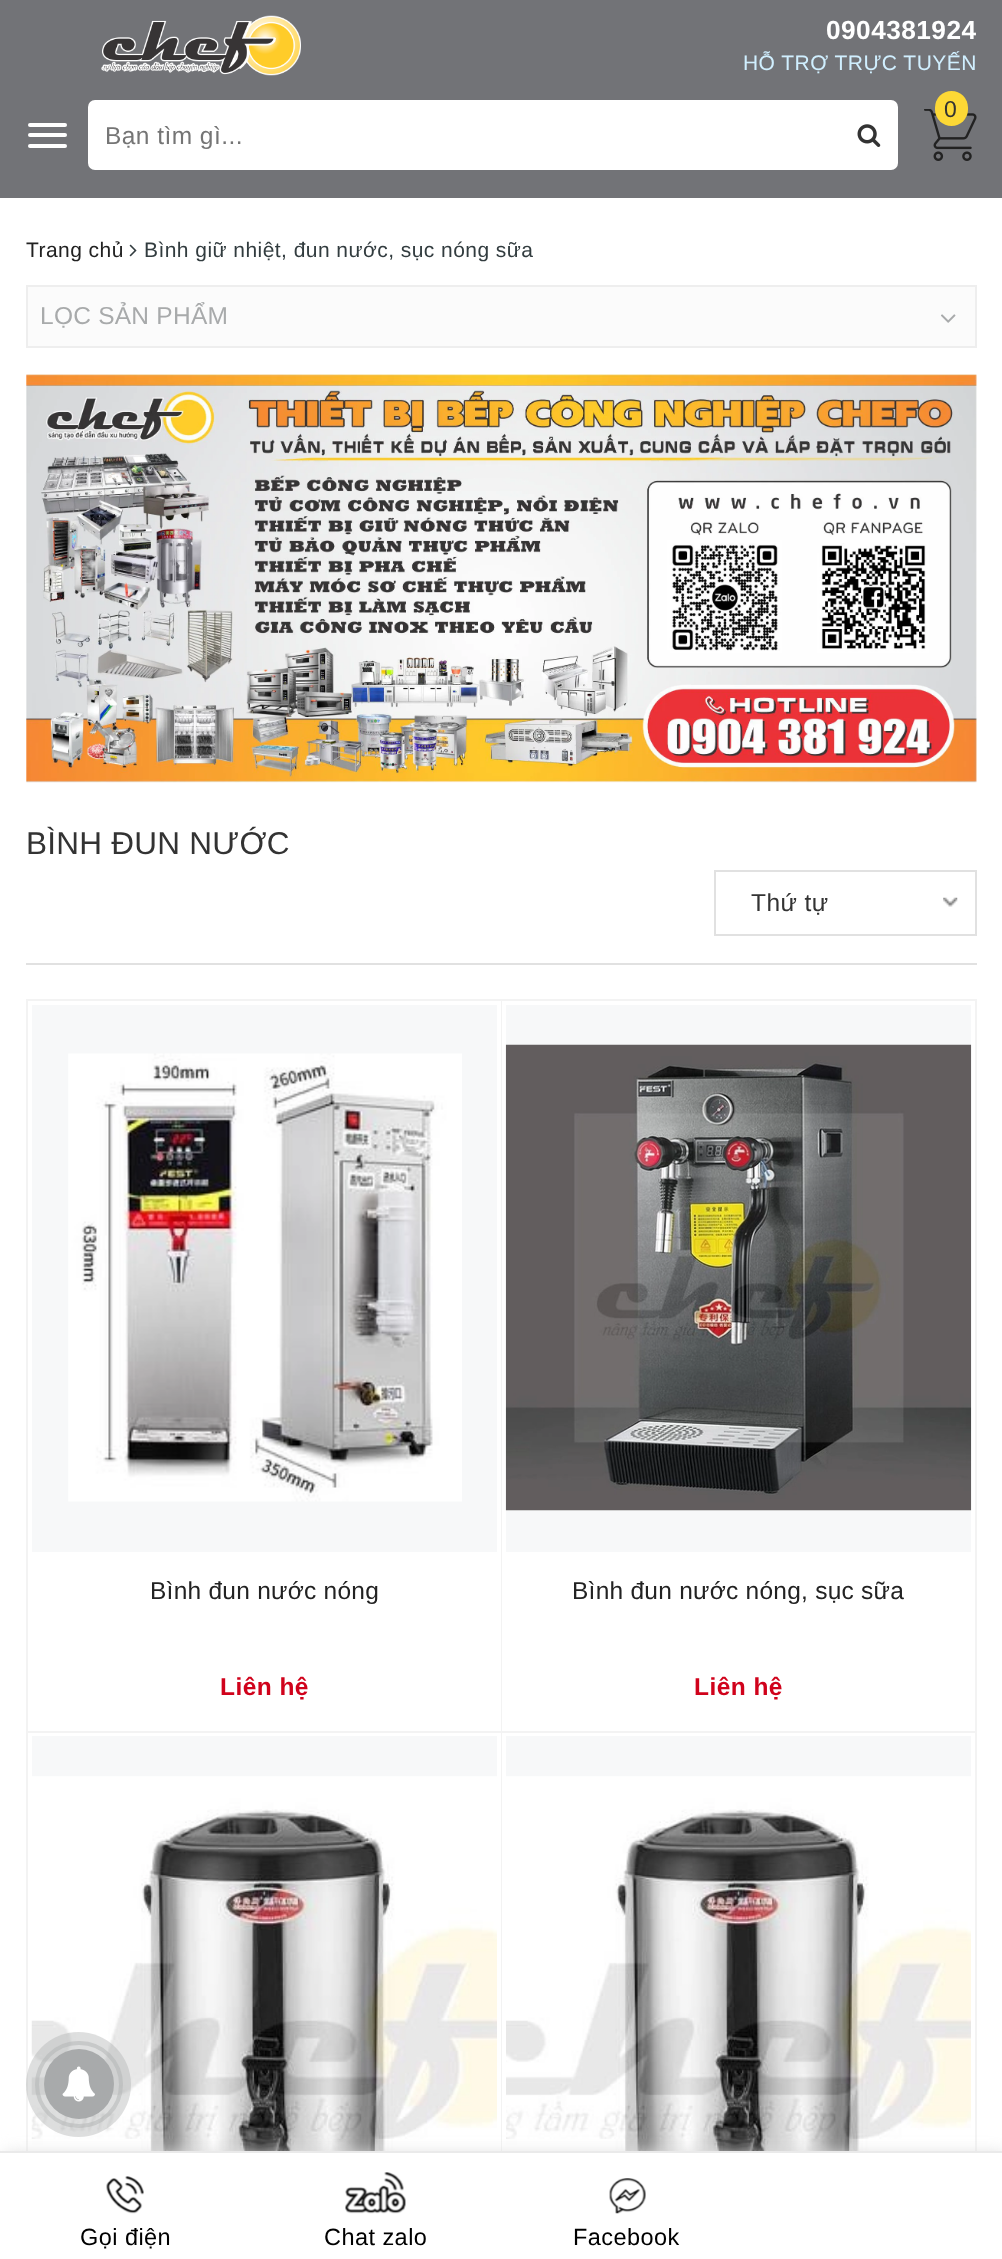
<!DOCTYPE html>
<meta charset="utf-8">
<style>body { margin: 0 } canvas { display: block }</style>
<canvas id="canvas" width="1002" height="2259"></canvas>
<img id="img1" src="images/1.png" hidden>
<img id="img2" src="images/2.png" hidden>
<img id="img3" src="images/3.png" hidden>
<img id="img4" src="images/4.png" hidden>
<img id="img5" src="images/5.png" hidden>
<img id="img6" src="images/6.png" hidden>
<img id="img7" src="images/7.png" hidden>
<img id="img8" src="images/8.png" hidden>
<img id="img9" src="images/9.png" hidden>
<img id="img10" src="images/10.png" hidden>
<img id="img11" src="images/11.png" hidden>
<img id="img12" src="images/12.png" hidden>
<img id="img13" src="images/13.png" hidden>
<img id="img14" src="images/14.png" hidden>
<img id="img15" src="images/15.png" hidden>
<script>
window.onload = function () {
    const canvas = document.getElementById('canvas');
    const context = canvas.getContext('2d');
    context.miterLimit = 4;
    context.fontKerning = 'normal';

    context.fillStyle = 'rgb(255, 255, 255)';
    context.fillRect(0, 0, 1002, 2259);
    context.fillStyle = 'rgb(114, 115, 119)';
    context.fillRect(0, 0, 1002, 198);
    context.drawImage(document.getElementById('img1'), 101, 15, 200, 61);
    context.drawImage(document.getElementById('img2'), 924, 109, 53, 52);
    context.fillStyle = 'rgb(253, 216, 53)';
    context.beginPath();
    context.roundRect(935, 91, 33, 35, 16.5);
    context.fill();
    context.fillStyle = 'rgb(255, 255, 255)';
    context.beginPath();
    context.roundRect(28, 123, 39, 4, 2);
    context.fill();
    context.beginPath();
    context.roundRect(28, 133, 39, 4, 2);
    context.fill();
    context.beginPath();
    context.roundRect(28, 144, 39, 4, 2);
    context.fill();
    context.beginPath();
    context.roundRect(88, 100, 754, 70, [7, 0, 0, 7]);
    context.fill();
    context.beginPath();
    context.roundRect(840, 100, 58, 70, [0, 7, 7, 0]);
    context.fill();
    context.drawImage(document.getElementById('img3'), 857, 124, 24, 23);
    context.drawImage(document.getElementById('img4'), 129, 244, 8, 13);
    context.fillStyle = 'rgb(251, 251, 251)';
    context.beginPath();
    context.rect(27, 286, 949, 61);
    context.fill();
    context.strokeStyle = 'rgb(238, 238, 238)';
    context.lineWidth = 2;
    context.stroke();
    context.drawImage(document.getElementById('img5'), 941, 314, 15, 9);
    context.drawImage(document.getElementById('img6'), 26, 374, 951, 409);
    context.fillStyle = 'rgb(225, 225, 225)';
    context.fillRect(26, 963, 951, 2);
    context.drawImage(document.getElementById('img7'), 943, 897, 15, 10);
    context.strokeStyle = 'rgb(225, 225, 225)';
    context.strokeRect(715, 871, 261, 64);
    context.fillStyle = 'rgb(243, 243, 243)';
    context.fillRect(26, 999, 951, 2);
    context.fillRect(26, 999, 2, 1152);
    context.fillRect(501, 1001, 1, 1150);
    context.fillRect(28, 1731, 474, 2);
    context.fillStyle = 'rgb(247, 248, 249)';
    context.fillRect(32, 1005, 465, 547);
    context.drawImage(document.getElementById('img8'), 68, 1053, 394, 449);
    context.fillStyle = 'rgb(243, 243, 243)';
    context.fillRect(975, 1001, 2, 1150);
    context.fillRect(502, 1731, 475, 2);
    context.fillStyle = 'rgb(247, 248, 249)';
    context.fillRect(506, 1005, 465, 547);
    context.drawImage(document.getElementById('img9'), 505, 1044, 467, 467);
    context.fillRect(32, 1736, 465, 41);
    context.drawImage(document.getElementById('img10'), 31, 1776, 466, 375);
    context.fillRect(506, 1736, 465, 41);
    context.drawImage(document.getElementById('img11'), 506, 1776, 465, 375);
    context.fillStyle = 'rgb(222, 222, 222)';
    context.filter = 'blur(8px)';
    context.beginPath();
    context.rect(4, 2153, 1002, 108);
    context.fill();
    context.filter = 'none';
    context.fillStyle = 'rgb(255, 255, 255)';
    context.fillRect(0, 2153, 1002, 106);
    context.fillStyle = 'rgb(234, 234, 234)';
    context.fillRect(0, 2151, 1002, 2);
    context.drawImage(document.getElementById('img12'), 106, 2176, 38, 38);
    context.drawImage(document.getElementById('img13'), 345, 2172, 61, 42);
    context.drawImage(document.getElementById('img14'), 609, 2178, 37, 36);
    context.beginPath();
    context.roundRect(37, 2043, 84, 83, 41.5);
    context.strokeStyle = 'rgba(181, 183, 184, 0.5)';
    context.lineWidth = 4;
    context.stroke();
    context.fillStyle = 'rgba(168, 170, 171, 0.38)';
    context.beginPath();
    context.arc(78.5, 2084.5, 52.5, 0, 2 * Math.PI);
    context.fill();
    context.fillStyle = 'rgb(168, 170, 171)';
    context.beginPath();
    context.arc(79, 2084, 35, 0, 2 * Math.PI);
    context.fill();
    context.drawImage(document.getElementById('img15'), 62, 2066, 33, 36);
    context.letterSpacing = '0.45px';
    context.font = 'bold 26.25px Liberation Sans';
    context.fillStyle = 'rgb(255, 255, 255)';
    context.fillText('0904381924', 826, 39);
    context.font = '21px Liberation Sans';
    context.fillStyle = 'rgb(208, 239, 255)';
    context.fillText('HỖ TRỢ TRỰC TUYẾN', 743, 70);
    context.font = '23px Liberation Sans';
    context.fillStyle = 'rgb(51, 51, 51)';
    context.fillText('0', 944, 117);
    context.font = '24.5px Liberation Sans';
    context.fillStyle = 'rgb(117, 117, 117)';
    context.fillText('Bạn tìm gì...', 105, 144);
    context.font = '21px Liberation Sans';
    context.fillStyle = 'rgb(34, 34, 34)';
    context.fillText('Trang chủ', 26, 257);
    context.fillStyle = 'rgb(50, 60, 63)';
    context.fillText('Bình giữ nhiệt, đun nước, sục nóng sữa', 144, 257);
    context.letterSpacing = '0.25px';
    context.font = '24.5px Liberation Sans';
    context.fillStyle = 'rgb(168, 170, 171)';
    context.fillText('LỌC SẢN PHẨM', 40, 324);
    context.font = '31.5px Liberation Sans';
    context.fillStyle = 'rgb(51, 51, 51)';
    context.fillText('BÌNH ĐUN NƯỚC', 26, 854);
    context.letterSpacing = '0.45px';
    context.font = '24.5px Liberation Sans';
    context.fillText('Thứ tự', 751, 911);
    context.letterSpacing = '0.25px';
    context.fillStyle = 'rgb(34, 34, 34)';
    context.fillText('Bình đun nước nóng', 150, 1599);
    context.letterSpacing = '0.45px';
    context.font = 'bold 24.5px Liberation Sans';
    context.fillStyle = 'rgb(208, 2, 27)';
    context.fillText('Liên hệ', 220, 1695);
    context.letterSpacing = '0.25px';
    context.font = '24.5px Liberation Sans';
    context.fillStyle = 'rgb(34, 34, 34)';
    context.fillText('Bình đun nước nóng, sục sữa', 572, 1599);
    context.letterSpacing = '0.45px';
    context.font = 'bold 24.5px Liberation Sans';
    context.fillStyle = 'rgb(208, 2, 27)';
    context.fillText('Liên hệ', 694, 1695);
    context.font = '23.5px Liberation Sans';
    context.fillStyle = 'rgb(0, 0, 0)';
    context.fillText('Gọi điện', 80, 2245);
    context.fillText('Chat zalo', 324, 2245);
    context.fillText('Facebook', 573, 2245);
};
</script>
